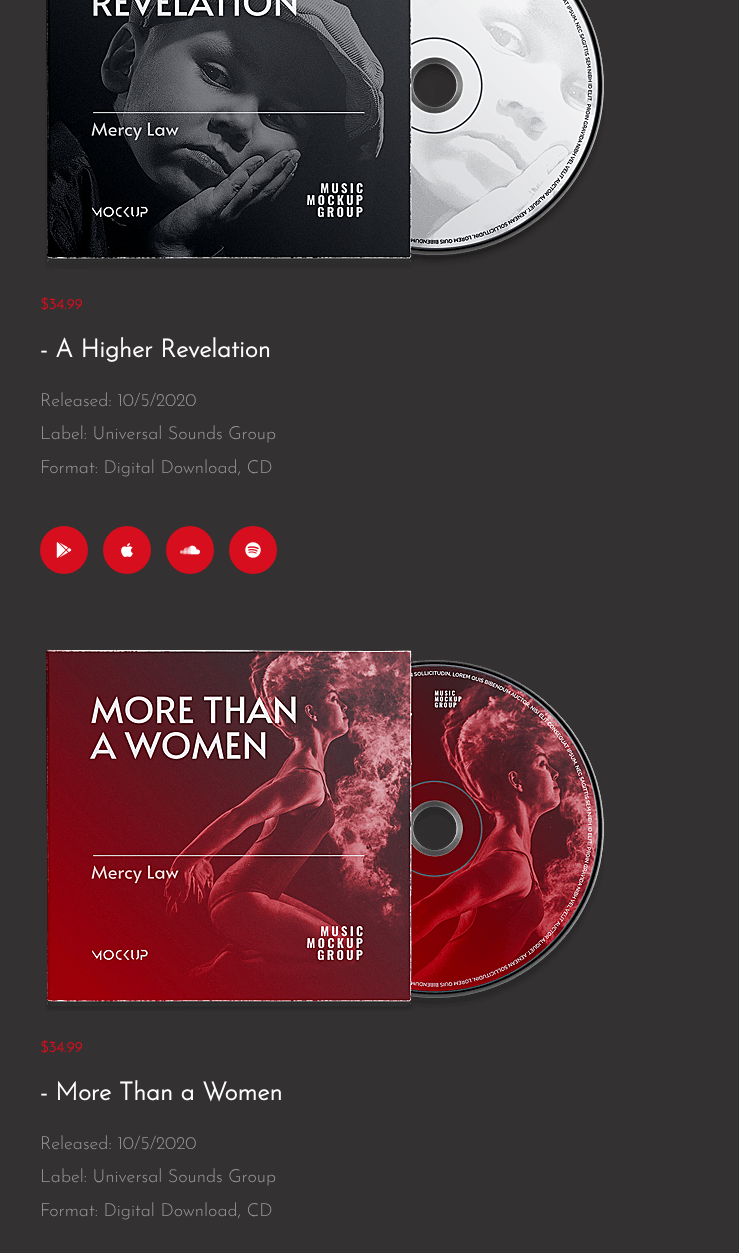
<!DOCTYPE html>
<meta charset="utf-8">
<style>body { margin: 0 } canvas { display: block }</style>
<canvas id="canvas" width="739" height="1253"></canvas>
<img id="img1" src="images/1.png" hidden>
<img id="img2" src="images/2.png" hidden>
<img id="img3" src="images/3.png" hidden>
<img id="img4" src="images/4.png" hidden>
<img id="img5" src="images/5.png" hidden>
<img id="img6" src="images/6.png" hidden>
<script>
window.onload = function () {
    const canvas = document.getElementById('canvas');
    const context = canvas.getContext('2d');
    context.miterLimit = 4;
    context.fontKerning = 'normal';

    context.fillStyle = 'rgb(51, 49, 50)';
    context.fillRect(0, 0, 739, 1253);
    context.drawImage(document.getElementById('img1'), 45, 0, 560, 269);
    context.fillStyle = 'rgb(215, 14, 29)';
    context.beginPath();
    context.arc(64, 550, 24, 0, 2 * Math.PI);
    context.fill();
    context.drawImage(document.getElementById('img2'), 56, 542, 16, 16);
    context.beginPath();
    context.arc(127, 550, 24, 0, 2 * Math.PI);
    context.fill();
    context.drawImage(document.getElementById('img3'), 121, 543, 12, 14);
    context.beginPath();
    context.arc(190, 550, 24, 0, 2 * Math.PI);
    context.fill();
    context.drawImage(document.getElementById('img4'), 180, 545, 20, 10);
    context.beginPath();
    context.arc(253, 550, 24, 0, 2 * Math.PI);
    context.fill();
    context.drawImage(document.getElementById('img5'), 245, 542, 16, 16);
    context.drawImage(document.getElementById('img6'), 46, 649, 558, 362);
    context.font = 'bold 15px Josefin Sans';
    context.fillText('$34.99', 40, 309);
    context.font = 'bold 25px Josefin Sans';
    context.fillStyle = 'rgb(255, 255, 255)';
    context.fillText('- A Higher Revelation', 40, 357);
    context.font = '100 18px Josefin Sans';
    context.fillStyle = 'rgb(153, 152, 153)';
    context.fillText('Released: 10/5/2020', 40, 406);
    context.fillText('Label: Universal Sounds Group', 40, 439);
    context.fillText('Format: Digital Download, CD', 40, 473);
    context.font = 'bold 15px Josefin Sans';
    context.fillStyle = 'rgb(215, 14, 29)';
    context.fillText('$34.99', 40, 1052);
    context.font = 'bold 25px Josefin Sans';
    context.fillStyle = 'rgb(255, 255, 255)';
    context.fillText('- More Than a Women', 40, 1100);
    context.font = '100 18px Josefin Sans';
    context.fillStyle = 'rgb(153, 152, 153)';
    context.fillText('Released: 10/5/2020', 40, 1149);
    context.fillText('Label: Universal Sounds Group', 40, 1182);
    context.fillText('Format: Digital Download, CD', 40, 1216);
};
</script>
